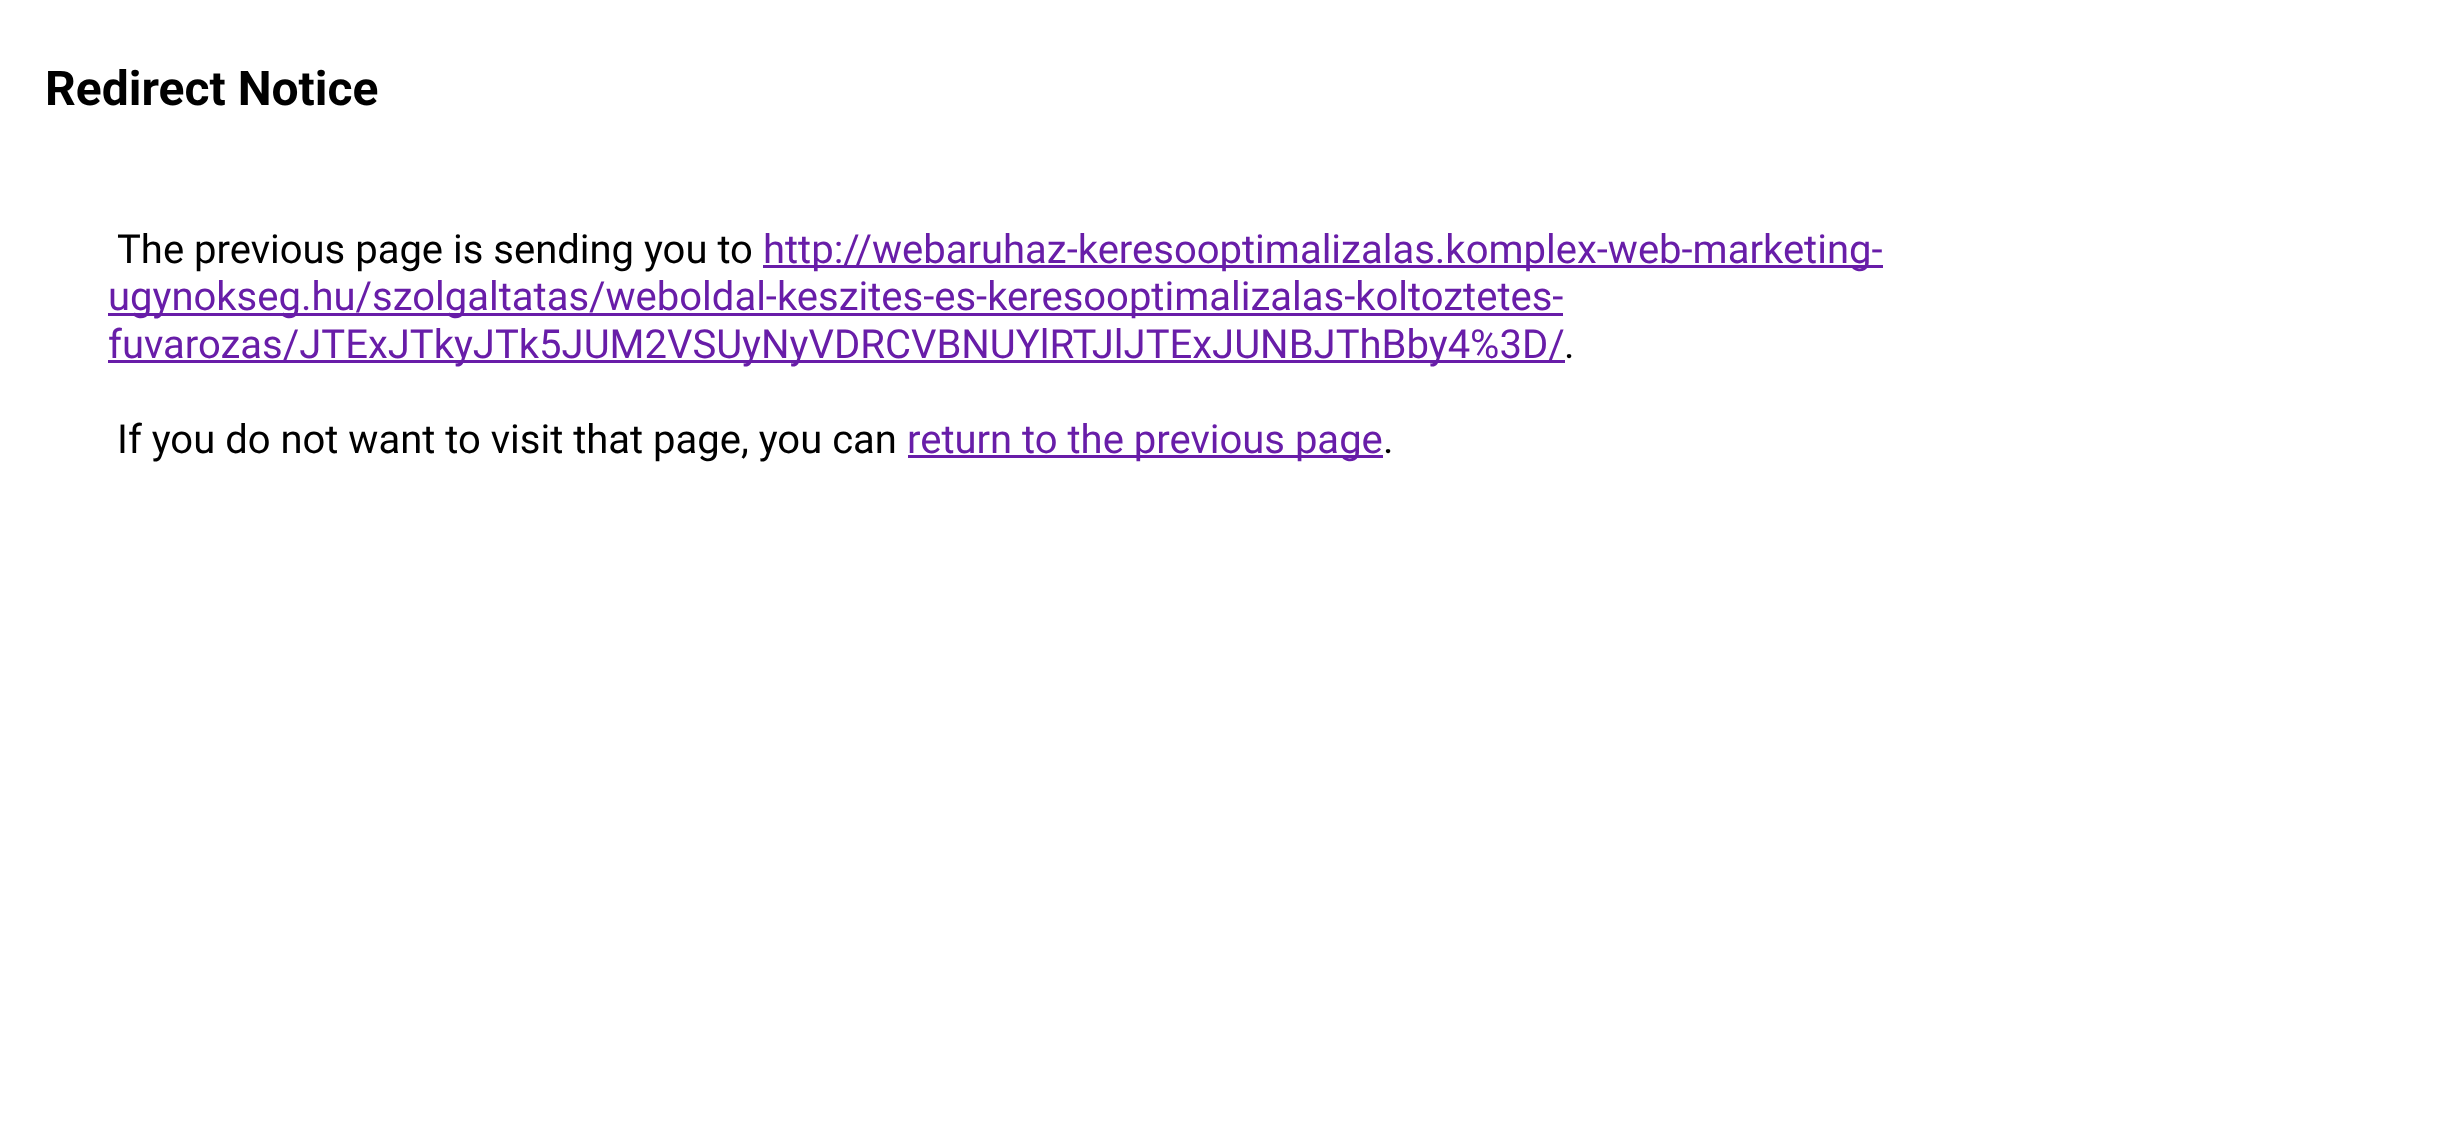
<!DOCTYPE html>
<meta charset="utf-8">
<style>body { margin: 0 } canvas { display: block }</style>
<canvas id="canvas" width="2440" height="1122"></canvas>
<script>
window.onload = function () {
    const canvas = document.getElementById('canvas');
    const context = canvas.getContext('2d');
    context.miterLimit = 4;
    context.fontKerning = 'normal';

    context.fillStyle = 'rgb(255, 255, 255)';
    context.fillRect(0, 0, 2440, 1122);
    context.fillStyle = 'rgb(104, 29, 168)';
    context.fillRect(763, 265, 1120, 3);
    context.fillRect(108, 313, 1455, 3);
    context.fillRect(108, 360, 1457, 3);
    context.fillRect(908, 455, 475, 3);
    context.font = 'bold 48px Roboto';
    context.fillStyle = 'rgb(0, 0, 0)';
    context.fillText('Redirect Notice', 45, 105);
    context.font = '40px Roboto';
    context.fillText('The previous page is sending you to', 117, 263);
    context.fillStyle = 'rgb(104, 29, 168)';
    context.fillText('http://webaruhaz-keresooptimalizalas.komplex-web-marketing-', 763, 263);
    context.fillText('ugynokseg.hu/szolgaltatas/weboldal-keszites-es-keresooptimalizalas-koltoztetes-', 108, 310);
    context.fillText('fuvarozas/JTExJTkyJTk5JUM2VSUyNyVDRCVBNUYlRTJlJTExJUNBJThBby4%3D/', 108, 358);
    context.fillStyle = 'rgb(0, 0, 0)';
    context.fillText('.', 1564, 358);
    context.fillText('If you do not want to visit that page, you can', 117, 453);
    context.fillStyle = 'rgb(104, 29, 168)';
    context.fillText('return to the previous page', 907, 453);
    context.fillStyle = 'rgb(0, 0, 0)';
    context.fillText('.', 1383, 453);
};
</script>
